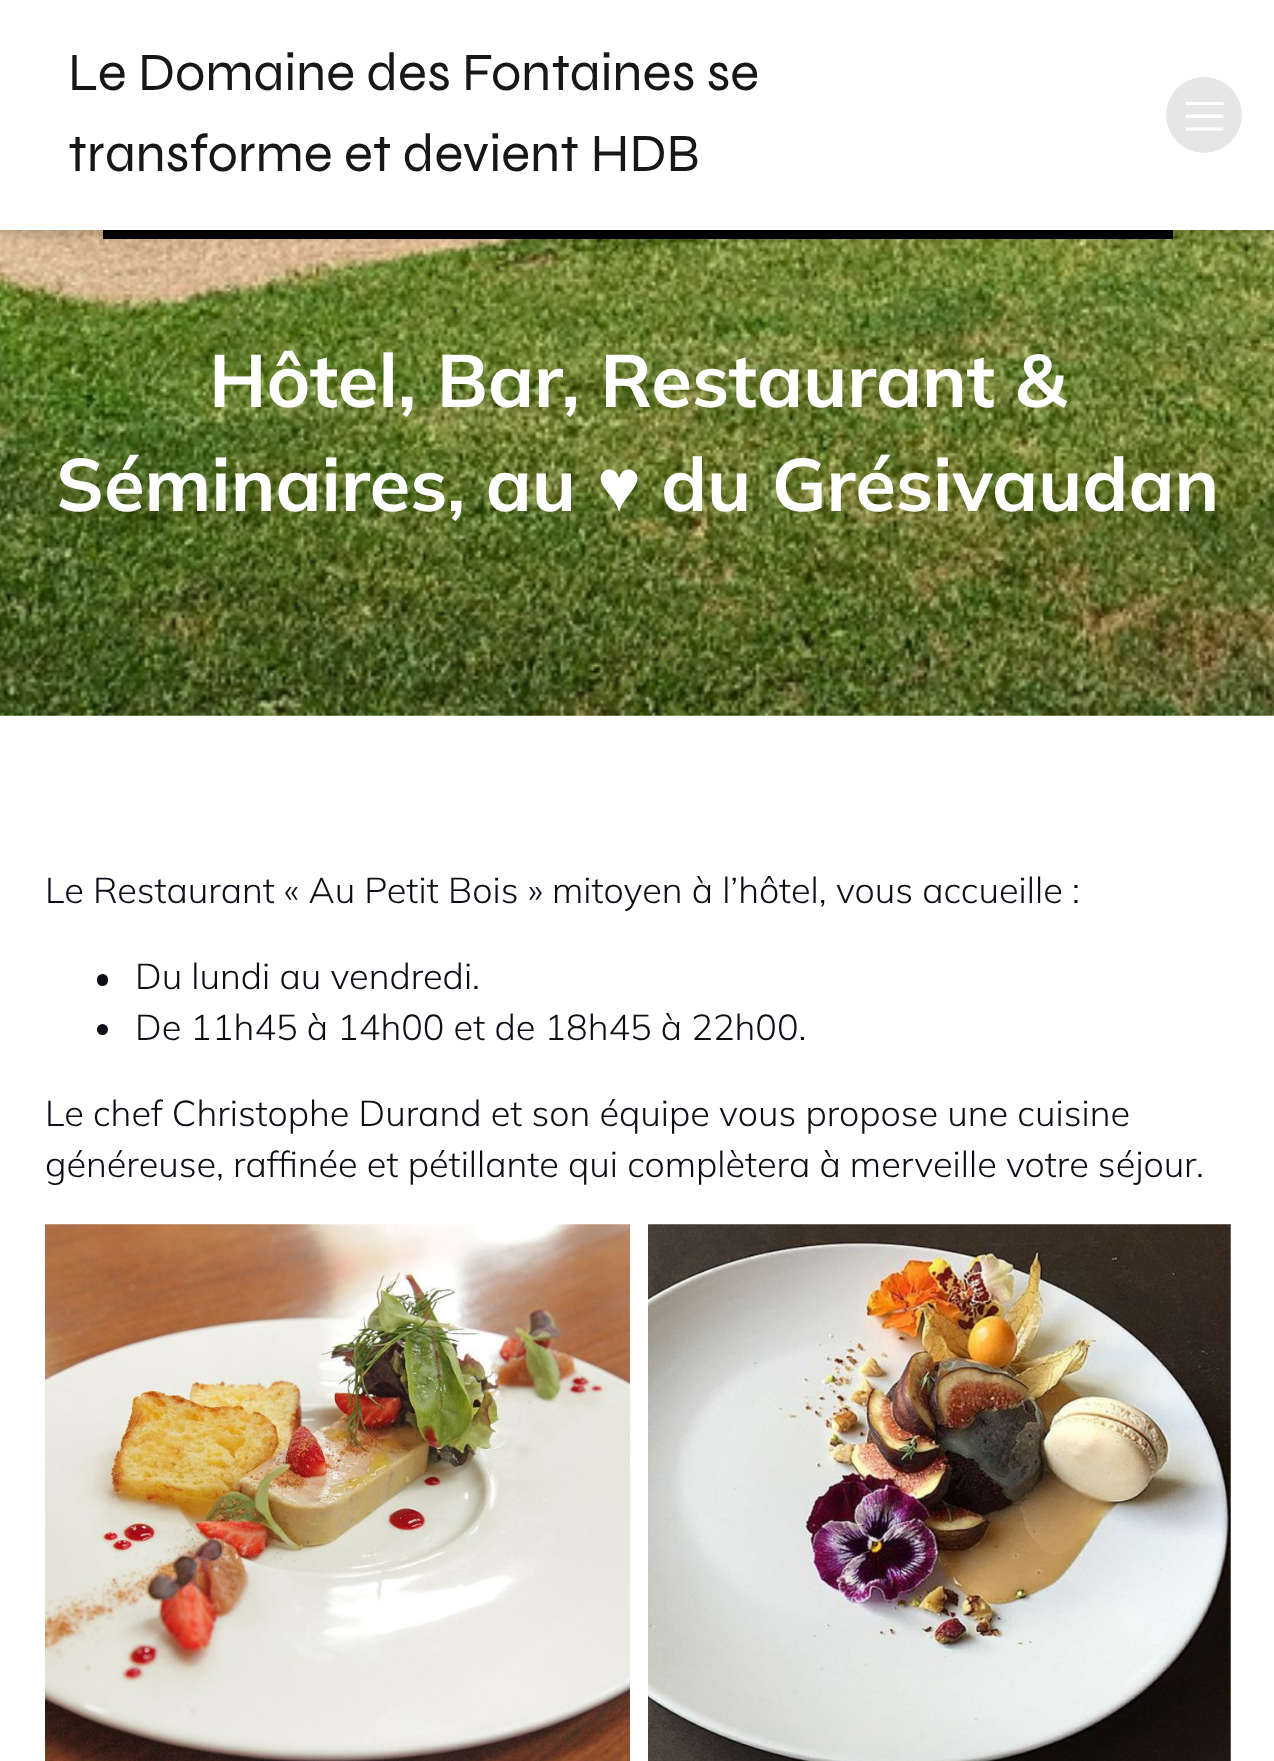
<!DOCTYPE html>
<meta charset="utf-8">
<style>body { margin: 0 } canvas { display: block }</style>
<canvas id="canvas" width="1274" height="1761"></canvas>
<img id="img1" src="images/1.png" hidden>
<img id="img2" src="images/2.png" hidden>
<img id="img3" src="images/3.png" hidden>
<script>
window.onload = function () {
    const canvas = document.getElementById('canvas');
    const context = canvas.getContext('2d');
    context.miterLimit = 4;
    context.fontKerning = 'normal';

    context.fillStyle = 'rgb(255, 255, 255)';
    context.fillRect(0, 0, 1274, 1761);
    context.drawImage(document.getElementById('img1'), 0, 230, 1274, 486);
    context.fillStyle = 'rgb(0, 0, 0)';
    context.fillRect(103, 230, 1070, 9);
    context.fillStyle = 'rgba(0, 0, 0, 0.16)';
    context.filter = 'blur(7px)';
    context.beginPath();
    context.rect(0, 7, 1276, 229);
    context.fill();
    context.filter = 'none';
    context.fillStyle = 'rgb(255, 255, 255)';
    context.fillRect(0, 0, 1274, 230);
    context.fillStyle = 'rgb(230, 230, 230)';
    context.beginPath();
    context.arc(1204, 115, 38, 0, 2 * Math.PI);
    context.fill();
    context.fillStyle = 'rgb(255, 255, 255)';
    context.beginPath();
    context.moveTo(1185.5, 102);
    context.lineTo(1223.5, 102);
    context.lineTo(1223.5, 105);
    context.lineTo(1185.5, 105);
    context.closePath();
    context.moveTo(1185.5, 114.5);
    context.lineTo(1223.5, 114.5);
    context.lineTo(1223.5, 118);
    context.lineTo(1185.5, 118);
    context.closePath();
    context.moveTo(1185.5, 127.5);
    context.lineTo(1223.5, 127.5);
    context.lineTo(1223.5, 130.5);
    context.lineTo(1185.5, 130.5);
    context.closePath();
    context.fill();
    context.fillStyle = 'rgb(14, 14, 23)';
    context.beginPath();
    context.roundRect(97, 974, 11, 12, 5.5);
    context.fill();
    context.beginPath();
    context.arc(102.5, 1029.5, 5.5, 0, 2 * Math.PI);
    context.fill();
    context.drawImage(document.getElementById('img2'), 45, 1224, 585, 537);
    context.drawImage(document.getElementById('img3'), 648, 1224, 583, 537);
    context.font = '54px Syne';
    context.fillStyle = 'rgb(23, 23, 24)';
    context.fillText('Le Domaine des Fontaines se', 68, 90);
    context.fillText('transforme et devient HDB', 68, 171);
    context.font = 'bold 74.25px Mulish';
    context.fillStyle = 'rgb(255, 255, 255)';
    context.fillText('Hôtel, Bar, Restaurant &', 209, 407);
    context.fillText('Séminaires, au', 56, 511);
    context.font = 'bold 74.25px Liberation Sans';
    context.fillText('♥', 597, 511);
    context.font = 'bold 74.25px Mulish';
    context.fillText('du Grésivaudan', 661, 511);
    context.font = '300 36px Mulish';
    context.fillStyle = 'rgb(14, 14, 23)';
    context.fillText('Le Restaurant « Au Petit Bois » mitoyen à l’hôtel, vous accueille :', 45, 903);
    context.fillText('Du lundi au vendredi.', 135, 989);
    context.fillText('De 11h45 à 14h00 et de 18h45 à 22h00.', 135, 1040);
    context.fillText('Le chef Christophe Durand et son équipe vous propose une cuisine', 45, 1126);
    context.fillText('généreuse, raffinée et pétillante qui complètera à merveille votre séjour.', 45, 1177);
};
</script>
